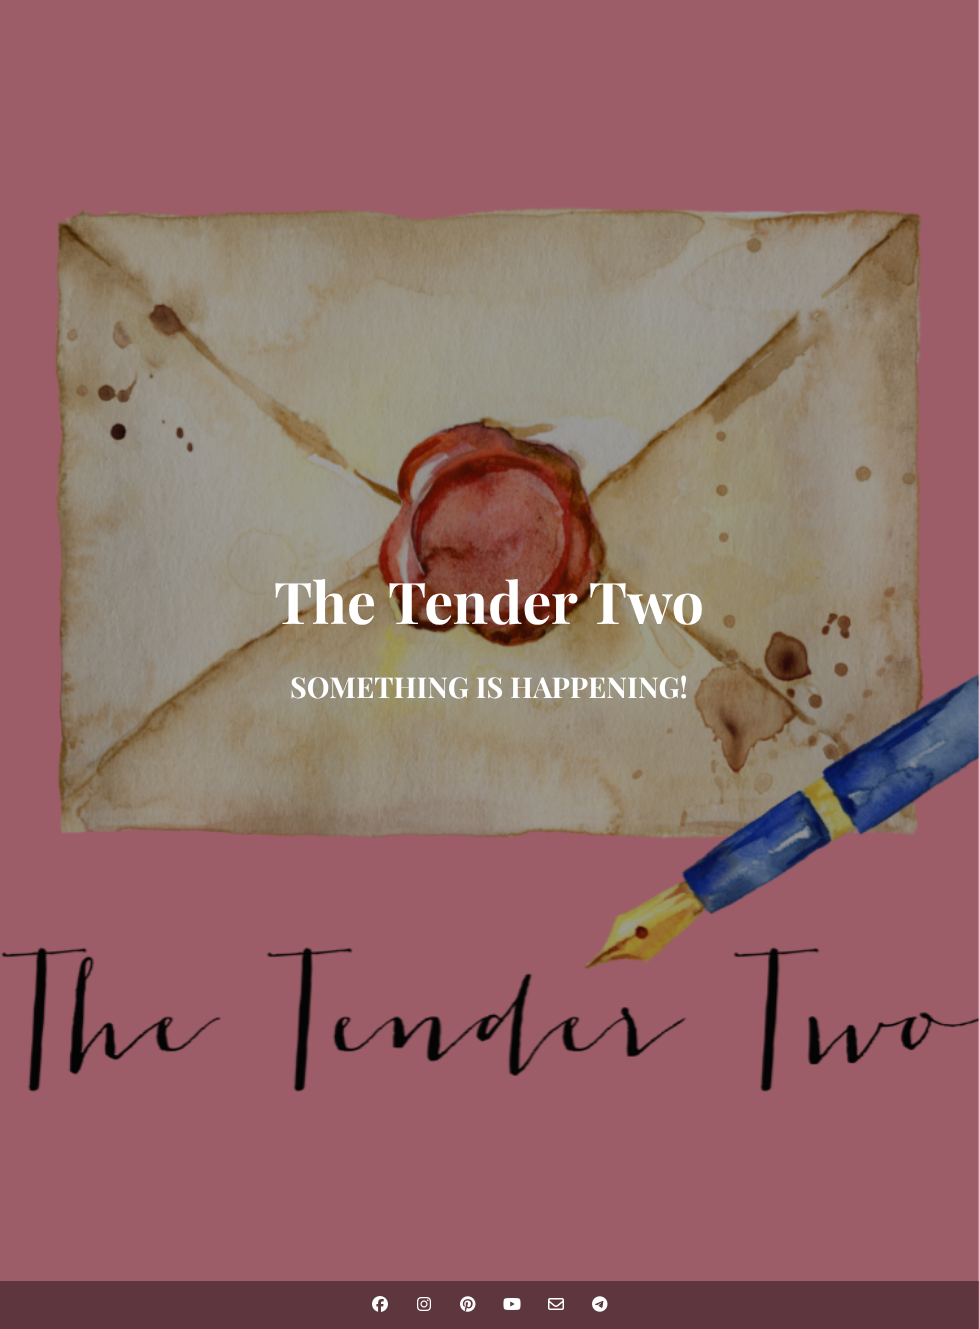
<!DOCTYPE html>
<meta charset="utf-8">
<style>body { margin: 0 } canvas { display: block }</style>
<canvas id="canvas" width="979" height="1329"></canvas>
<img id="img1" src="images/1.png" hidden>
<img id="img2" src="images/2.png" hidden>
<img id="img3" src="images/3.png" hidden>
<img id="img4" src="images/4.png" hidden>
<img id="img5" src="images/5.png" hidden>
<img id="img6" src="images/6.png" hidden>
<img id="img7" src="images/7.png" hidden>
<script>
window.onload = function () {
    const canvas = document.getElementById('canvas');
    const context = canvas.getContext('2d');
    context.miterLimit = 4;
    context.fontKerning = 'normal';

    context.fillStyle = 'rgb(255, 255, 255)';
    context.fillRect(0, 0, 979, 1329);
    context.drawImage(document.getElementById('img1'), 0, 0, 979, 1329);
    context.fillStyle = 'rgba(0, 0, 0, 0.4)';
    context.fillRect(0, 1281, 979, 48);
    context.drawImage(document.getElementById('img2'), 372, 1296, 16, 16);
    context.drawImage(document.getElementById('img3'), 417, 1297, 14, 14);
    context.drawImage(document.getElementById('img4'), 460, 1296, 16, 16);
    context.drawImage(document.getElementById('img5'), 503, 1298, 18, 12);
    context.drawImage(document.getElementById('img6'), 548, 1298, 16, 12);
    context.drawImage(document.getElementById('img7'), 592, 1296, 16, 16);
    context.font = 'bold 57.5px Playfair Display';
    context.fillStyle = 'rgb(255, 255, 255)';
    context.fillText('The Tender Two', 274, 624);
    context.font = 'bold 28.75px Playfair Display';
    context.fillText('SOMETHING IS HAPPENING!', 290, 698);
};
</script>
